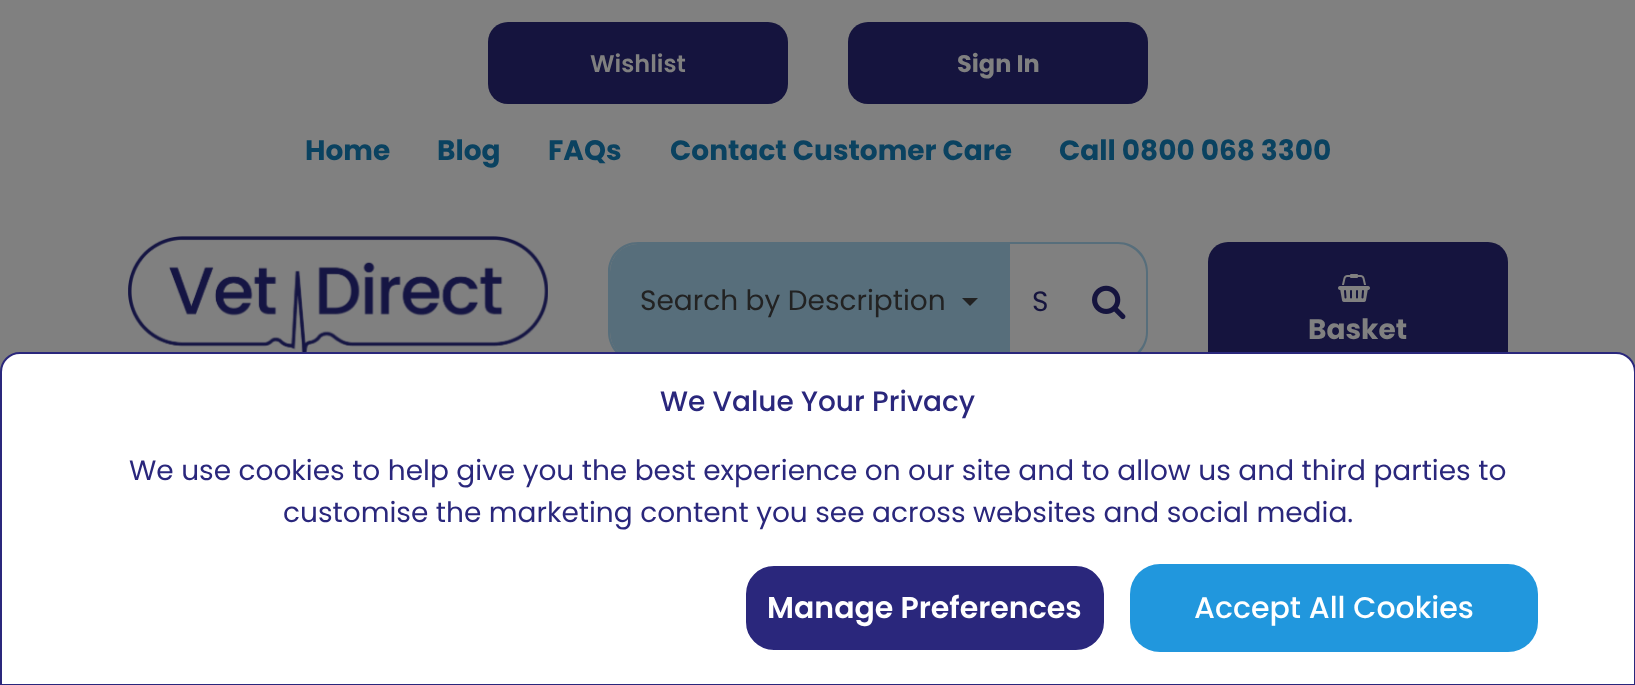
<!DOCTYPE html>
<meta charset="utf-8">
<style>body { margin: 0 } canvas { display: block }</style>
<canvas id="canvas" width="1635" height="685"></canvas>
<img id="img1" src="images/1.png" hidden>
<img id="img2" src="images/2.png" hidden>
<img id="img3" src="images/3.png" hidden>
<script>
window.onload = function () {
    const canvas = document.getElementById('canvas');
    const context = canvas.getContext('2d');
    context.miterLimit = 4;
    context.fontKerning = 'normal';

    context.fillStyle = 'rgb(128, 128, 128)';
    context.fillRect(0, 0, 1635, 685);
    context.fillStyle = 'rgb(21, 20, 62)';
    context.beginPath();
    context.roundRect(488, 22, 300, 82, 20);
    context.fill();
    context.beginPath();
    context.roundRect(848, 22, 300, 82, 20);
    context.fill();
    context.drawImage(document.getElementById('img1'), 128, 236, 420, 116);
    context.fillStyle = 'rgb(87, 110, 123)';
    context.beginPath();
    context.roundRect(610, 244, 398, 116, [28, 0, 0, 28]);
    context.fill();
    context.beginPath();
    context.moveTo(638, 242);
    context.bezierCurveTo(621, 242, 608, 255, 608, 272);
    context.lineTo(608, 332);
    context.bezierCurveTo(608, 349, 621, 362, 638, 362);
    context.lineTo(1008, 362);
    context.lineTo(1008, 360);
    context.lineTo(638, 360);
    context.bezierCurveTo(623, 360, 610, 347, 610, 332);
    context.lineTo(610, 272);
    context.bezierCurveTo(610, 257, 623, 244, 638, 244);
    context.lineTo(1008, 244);
    context.lineTo(1008, 242);
    context.closePath();
    context.fill();
    context.fillStyle = 'rgb(34, 34, 34)';
    context.beginPath();
    context.moveTo(962, 298);
    context.lineTo(978, 298);
    context.lineTo(970, 306);
    context.closePath();
    context.fill();
    context.fillStyle = 'rgb(87, 110, 123)';
    context.fillRect(1008, 242, 62, 2);
    context.fillRect(1008, 242, 2, 110);
    context.beginPath();
    context.moveTo(1070, 242);
    context.lineTo(1070, 244);
    context.lineTo(1118, 244);
    context.bezierCurveTo(1133, 244, 1146, 257, 1146, 272);
    context.lineTo(1146, 332);
    context.bezierCurveTo(1146, 347, 1133, 360, 1118, 360);
    context.lineTo(1070, 360);
    context.lineTo(1070, 362);
    context.lineTo(1118, 362);
    context.bezierCurveTo(1135, 362, 1148, 349, 1148, 332);
    context.lineTo(1148, 272);
    context.bezierCurveTo(1148, 255, 1135, 242, 1118, 242);
    context.closePath();
    context.fill();
    context.drawImage(document.getElementById('img2'), 1092, 285, 34, 35);
    context.fillStyle = 'rgb(21, 20, 62)';
    context.beginPath();
    context.roundRect(1208, 242, 300, 136, 20);
    context.fill();
    context.drawImage(document.getElementById('img3'), 1338, 274, 32, 28);
    context.fillStyle = 'rgb(255, 255, 255)';
    context.beginPath();
    context.moveTo(20, 353);
    context.lineTo(1616, 353);
    context.bezierCurveTo(1626.5, 353, 1635, 361.5, 1635, 372);
    context.lineTo(1635, 685);
    context.lineTo(1, 685);
    context.lineTo(1, 372);
    context.bezierCurveTo(1, 361.5, 9.5, 353, 20, 353);
    context.closePath();
    context.fill();
    context.strokeStyle = 'rgb(42, 39, 124)';
    context.lineWidth = 2;
    context.stroke();
    context.fillStyle = 'rgb(42, 39, 124)';
    context.beginPath();
    context.roundRect(745, 565, 360, 86, 29);
    context.fill();
    context.strokeStyle = 'rgb(255, 255, 255)';
    context.stroke();
    context.fillStyle = 'rgb(33, 151, 221)';
    context.beginPath();
    context.roundRect(1130, 564, 408, 88, 30);
    context.fill();
    context.font = '600 24px Poppins';
    context.fillStyle = 'rgb(128, 128, 128)';
    context.fillText('Wishlist', 590, 72);
    context.font = 'bold 24px Poppins';
    context.fillText('Sign In', 957, 72);
    context.font = 'bold 28px Poppins';
    context.fillStyle = 'rgb(10, 66, 96)';
    context.fillText('Home', 305, 160);
    context.fillText('Blog', 437, 160);
    context.fillText('FAQs', 548, 160);
    context.fillText('Contact Customer Care', 670, 160);
    context.fillText('Call 0800 068 3300', 1059, 160);
    context.font = '28px Poppins';
    context.fillStyle = 'rgb(34, 34, 34)';
    context.fillText('Search by Description', 640, 310);
    context.fillStyle = 'rgb(21, 20, 62)';
    context.fillText('S', 1032, 311);
    context.font = 'bold 28px Poppins';
    context.fillStyle = 'rgb(128, 128, 128)';
    context.fillText('Basket', 1308, 339);
    context.font = '500 28px Poppins';
    context.fillStyle = 'rgb(42, 39, 124)';
    context.fillText('We Value Your Privacy', 660, 411);
    context.font = '28px Poppins';
    context.fillText('We use cookies to help give you the best experience on our site and to allow us and third parties to', 129, 480);
    context.fillText('customise the marketing content you see across websites and social media.', 283, 522);
    context.font = '600 30px Poppins';
    context.fillStyle = 'rgb(255, 255, 255)';
    context.fillText('Manage Preferences', 767, 618);
    context.font = '500 30px Poppins';
    context.fillText('Accept All Cookies', 1194, 618);
};
</script>
